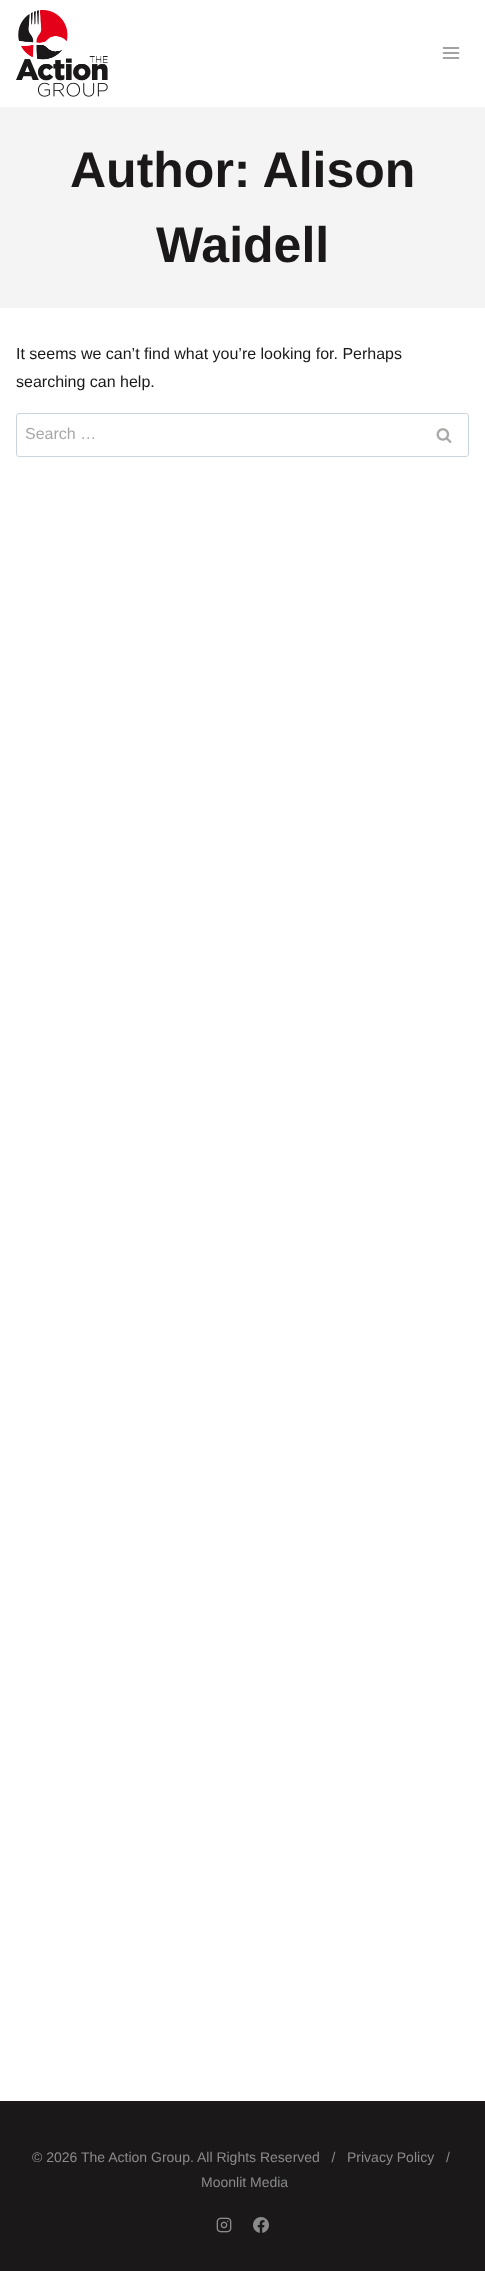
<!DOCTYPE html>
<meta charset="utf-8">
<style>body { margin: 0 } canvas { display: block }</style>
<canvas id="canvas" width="485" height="2271"></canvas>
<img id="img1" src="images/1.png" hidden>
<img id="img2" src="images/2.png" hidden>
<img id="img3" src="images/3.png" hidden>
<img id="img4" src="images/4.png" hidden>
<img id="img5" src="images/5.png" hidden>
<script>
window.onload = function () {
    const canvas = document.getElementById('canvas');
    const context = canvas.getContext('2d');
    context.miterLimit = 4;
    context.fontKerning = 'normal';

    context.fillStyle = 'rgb(255, 255, 255)';
    context.fillRect(0, 0, 485, 2271);
    context.drawImage(document.getElementById('img1'), 16, 10, 92, 87);
    context.drawImage(document.getElementById('img2'), 442, 47, 18, 12);
    context.fillStyle = 'rgb(244, 244, 244)';
    context.fillRect(0, 107, 485, 201);
    context.beginPath();
    context.roundRect(16.5, 413.5, 452, 43, 2.5);
    context.strokeStyle = 'rgb(203, 213, 224)';
    context.stroke();
    context.drawImage(document.getElementById('img3'), 436, 428, 16, 15);
    context.fillStyle = 'rgb(26, 24, 24)';
    context.fillRect(0, 2101, 485, 170);
    context.drawImage(document.getElementById('img4'), 216, 2217, 16, 16);
    context.drawImage(document.getElementById('img5'), 253, 2217, 16, 16);
    context.font = 'bold 50px Liberation Sans';
    context.fillText('Author: Alison', 70, 187);
    context.fillText('Waidell', 156, 262);
    context.font = '16px Liberation Sans';
    context.fillText('It seems we can’t find what you’re looking for. Perhaps', 16, 359);
    context.fillText('searching can help.', 16, 387);
    context.fillStyle = 'rgb(169, 168, 167)';
    context.fillText('Search …', 25, 439);
    context.font = '14px Liberation Sans';
    context.fillStyle = 'rgb(140, 139, 139)';
    context.fillText('© 2026 The Action Group. All Rights Reserved   /', 32, 2162);
    context.fillText('Privacy Policy', 347, 2162);
    context.fillText('/', 446, 2162);
    context.fillText('Moonlit Media', 201, 2187);
};
</script>
